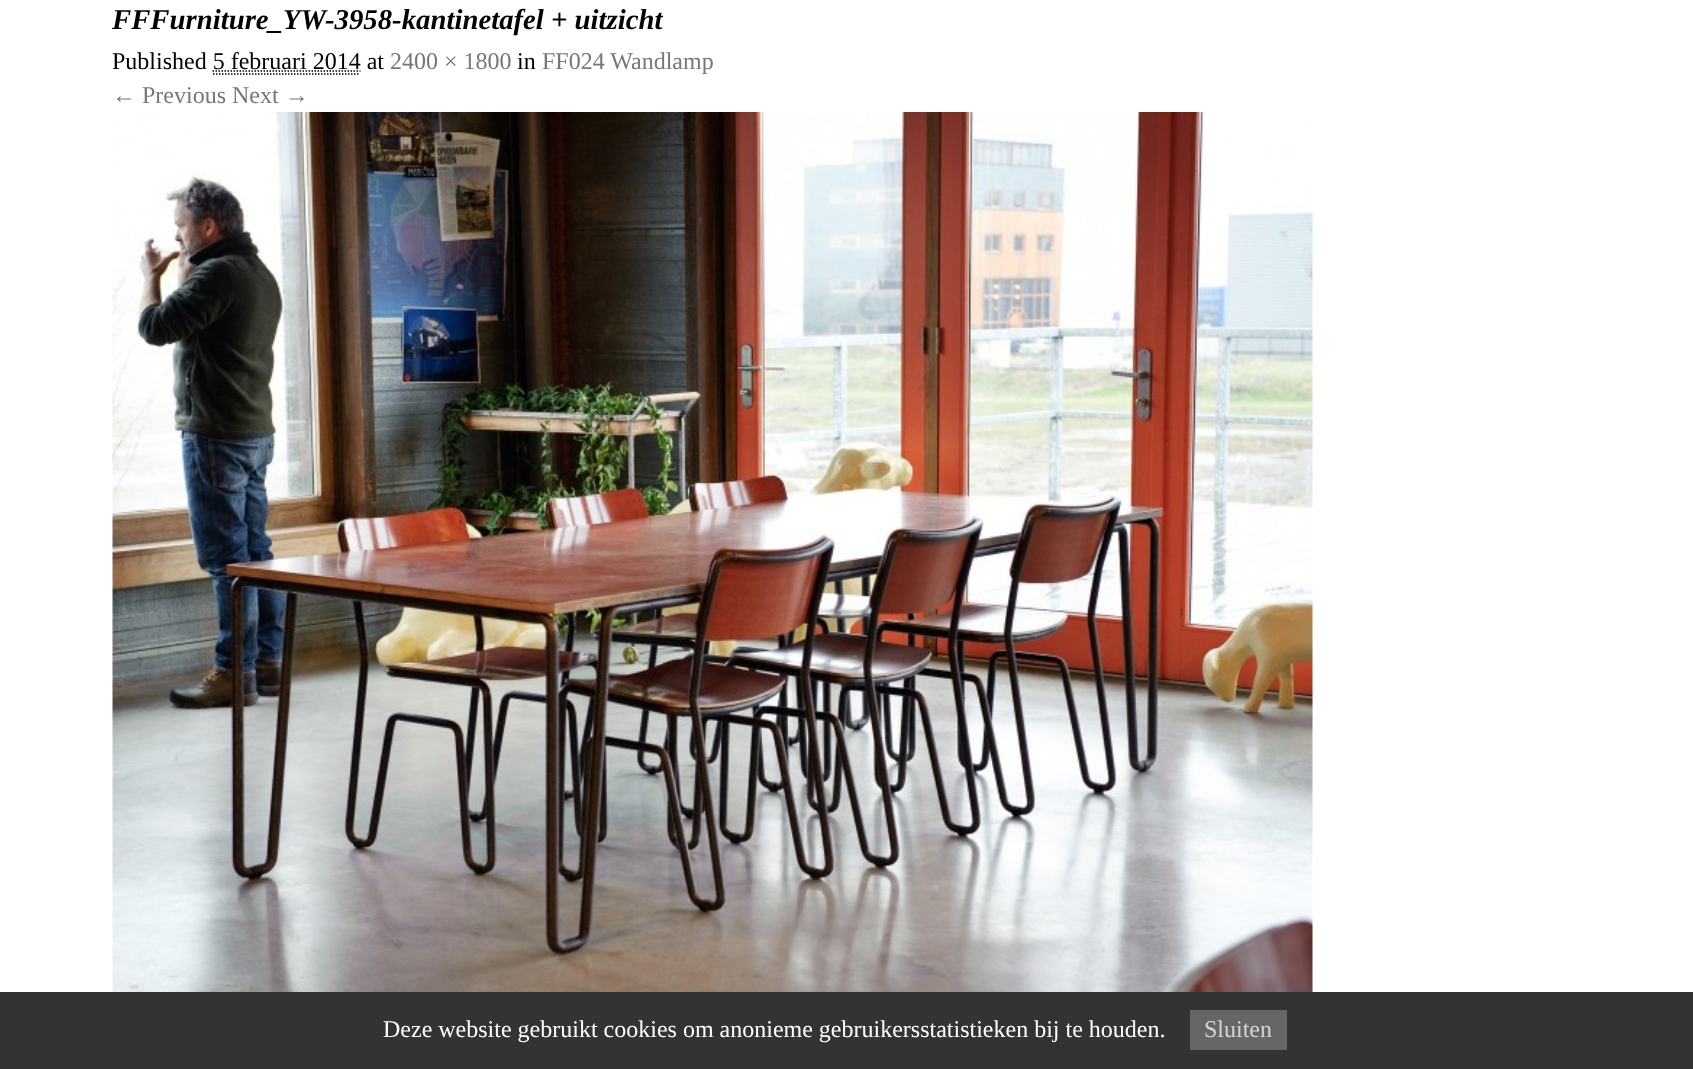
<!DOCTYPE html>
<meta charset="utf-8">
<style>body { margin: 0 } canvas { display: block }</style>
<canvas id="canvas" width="1693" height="1069"></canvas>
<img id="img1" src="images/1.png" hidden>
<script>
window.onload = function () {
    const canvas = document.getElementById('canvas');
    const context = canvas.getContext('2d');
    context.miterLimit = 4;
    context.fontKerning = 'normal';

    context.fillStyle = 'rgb(255, 255, 255)';
    context.fillRect(0, 0, 1693, 1069);
    context.beginPath();
    context.moveTo(212.5, 71);
    context.lineTo(360.5, 71);
    context.strokeStyle = 'rgb(0, 0, 0)';
    context.lineWidth = 1.5;
    context.setLineDash([1.5, 1.5]);
    context.stroke();
    context.beginPath();
    context.moveTo(213, 74);
    context.lineTo(360, 74);
    context.stroke();
    context.drawImage(document.getElementById('img1'), 112, 112, 1201, 880);
    context.fillStyle = 'rgb(51, 51, 51)';
    context.fillRect(0, 992, 1693, 77);
    context.fillStyle = 'rgb(102, 102, 102)';
    context.fillRect(1190, 1010, 97, 40);
    context.font = 'italic bold 28.75px Liberation Serif';
    context.fillStyle = 'rgb(0, 0, 0)';
    context.fillText('FFFurniture_YW-3958-kantinetafel + uitzicht', 112, 29);
    context.font = '24px Liberation Serif';
    context.fillText('Published 5 februari 2014 at', 112, 69);
    context.fillStyle = 'rgb(119, 119, 119)';
    context.fillText('2400 × 1800', 390, 69);
    context.fillStyle = 'rgb(0, 0, 0)';
    context.fillText('in', 517, 69);
    context.fillStyle = 'rgb(119, 119, 119)';
    context.fillText('FF024 Wandlamp', 542, 69);
    context.fillText('← Previous Next →', 112, 103);
    context.fillStyle = 'rgb(255, 255, 255)';
    context.fillText('Deze website gebruikt cookies om anonieme gebruikersstatistieken bij te houden.', 383, 1037);
    context.fillStyle = 'rgb(212, 212, 212)';
    context.fillText('Sluiten', 1204, 1037);
};
</script>
